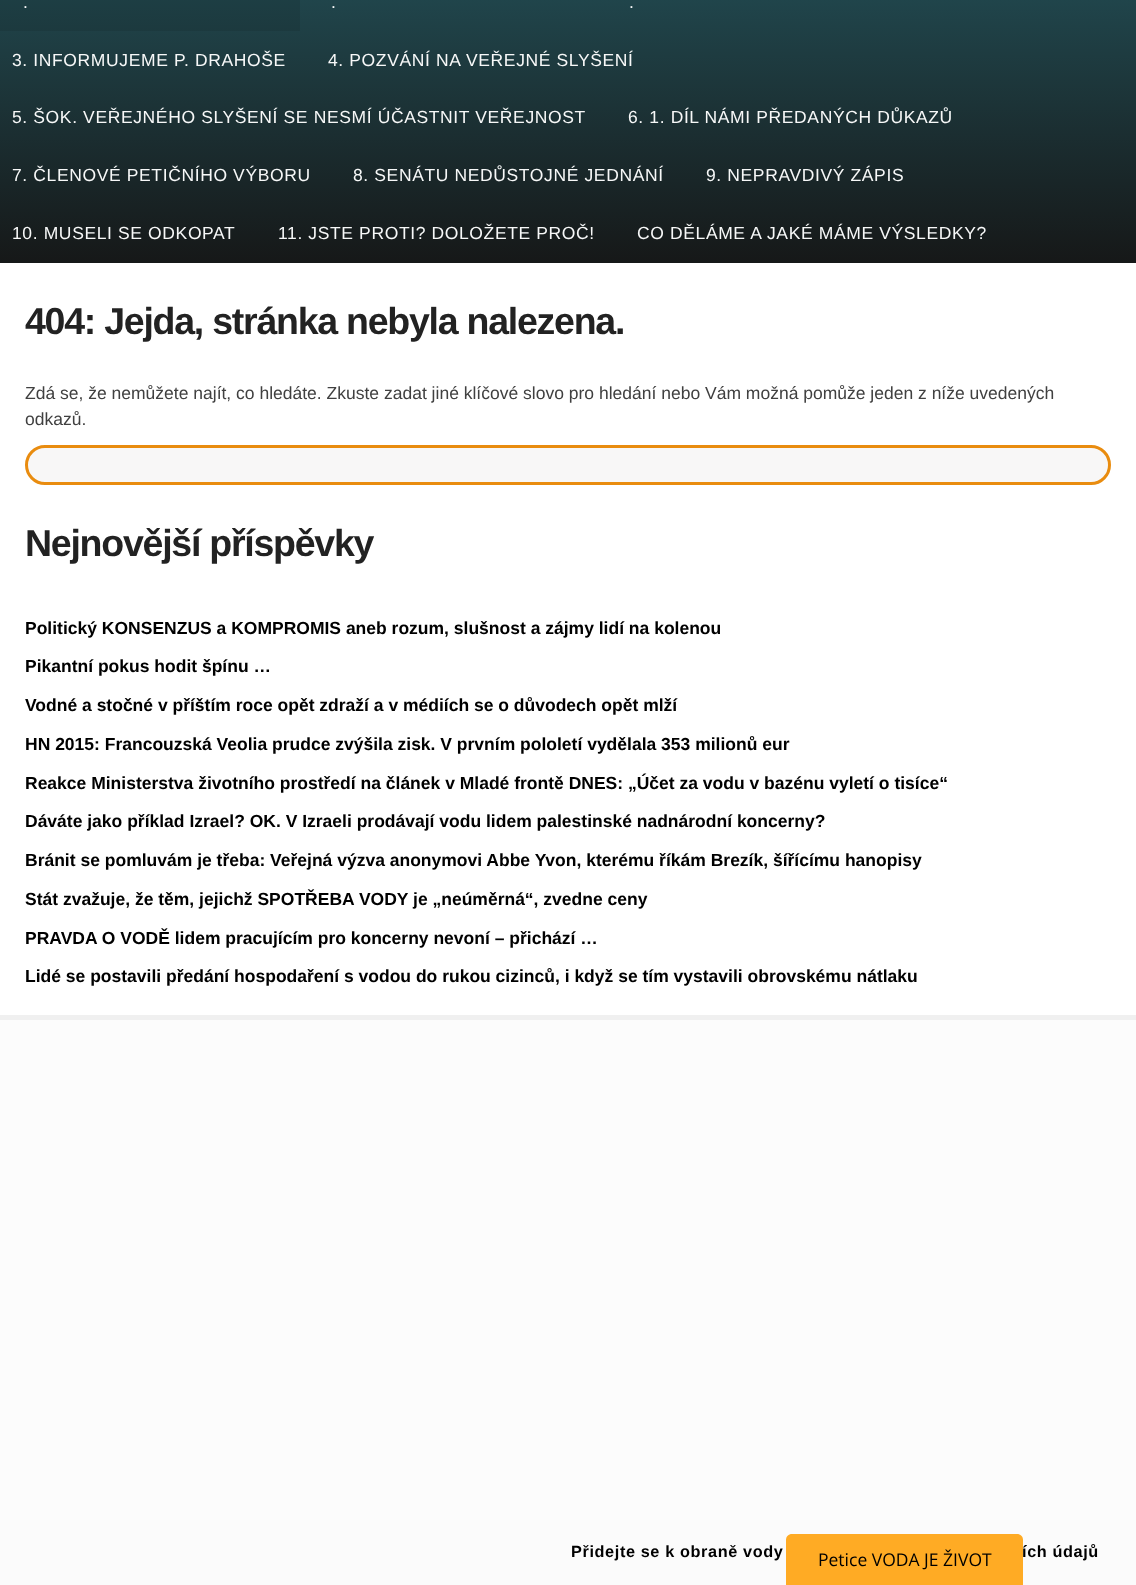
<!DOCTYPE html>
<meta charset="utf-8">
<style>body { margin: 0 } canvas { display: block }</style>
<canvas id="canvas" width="1136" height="1585"></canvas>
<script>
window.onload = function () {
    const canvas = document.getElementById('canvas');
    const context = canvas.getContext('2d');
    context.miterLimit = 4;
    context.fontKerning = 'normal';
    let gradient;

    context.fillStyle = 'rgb(255, 255, 255)';
    context.fillRect(0, 0, 1136, 1585);
    gradient = context.createLinearGradient(568, -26, 568, 263);
    gradient.addColorStop(0, 'rgb(33, 73, 80)');
    gradient.addColorStop(1, 'rgb(22, 24, 24)');
    context.fillStyle = gradient;
    context.fillRect(0, 0, 1136, 263);
    gradient = context.createLinearGradient(568, -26, 568, 263);
    gradient.addColorStop(0, 'rgb(30, 66, 72)');
    gradient.addColorStop(1, 'rgb(20, 22, 22)');
    context.fillStyle = gradient;
    context.fillRect(0, 0, 300, 31);
    context.fillStyle = 'rgb(248, 247, 247)';
    context.beginPath();
    context.roundRect(26.5, 446.5, 1083, 37, 18.5);
    context.fill();
    context.strokeStyle = 'rgb(233, 140, 15)';
    context.lineWidth = 3;
    context.stroke();
    context.fillStyle = 'rgb(252, 252, 252)';
    context.fillRect(0, 1020, 1136, 500);
    context.fillStyle = 'rgb(240, 240, 240)';
    context.fillRect(0, 1015, 1136, 5);
    context.fillStyle = 'rgb(251, 251, 251)';
    context.fillRect(0, 1520, 1136, 65);
    context.letterSpacing = '0.62px';
    context.font = '17.5px Liberation Sans';
    context.fillStyle = 'rgb(247, 248, 248)';
    context.fillText('.', 23, 8);
    context.fillText('.', 331, 8);
    context.fillText('.', 629, 8);
    context.fillText('3. INFORMUJEME P. DRAHOŠE', 12, 66);
    context.fillText('4. POZVÁNÍ NA VEŘEJNÉ SLYŠENÍ', 328, 66);
    context.fillText('5. ŠOK. VEŘEJNÉHO SLYŠENÍ SE NESMÍ ÚČASTNIT VEŘEJNOST', 12, 123);
    context.fillText('6. 1. DÍL NÁMI PŘEDANÝCH DŮKAZŮ', 628, 123);
    context.fillText('7. ČLENOVÉ PETIČNÍHO VÝBORU', 12, 181);
    context.fillText('8. SENÁTU NEDŮSTOJNÉ JEDNÁNÍ', 353, 181);
    context.fillText('9. NEPRAVDIVÝ ZÁPIS', 706, 181);
    context.fillText('10. MUSELI SE ODKOPAT', 12, 239);
    context.fillText('11. JSTE PROTI? DOLOŽETE PROČ!', 278, 239);
    context.fillText('CO DĚLÁME A JAKÉ MÁME VÝSLEDKY?', 637, 239);
    context.letterSpacing = '-1.25px';
    context.font = 'bold 37.5px Liberation Sans';
    context.fillStyle = 'rgb(34, 34, 34)';
    context.fillText('404: Jejda, stránka nebyla nalezena.', 25, 334);
    context.letterSpacing = '0px';
    context.font = '17.5px Liberation Sans';
    context.fillStyle = 'rgb(64, 64, 64)';
    context.fillText('Zdá se, že nemůžete najít, co hledáte. Zkuste zadat jiné klíčové slovo pro hledání nebo Vám možná pomůže jeden z níže uvedených', 25, 399);
    context.fillText('odkazů.', 25, 425);
    context.letterSpacing = '-1.25px';
    context.font = 'bold 37.5px Liberation Sans';
    context.fillStyle = 'rgb(34, 34, 34)';
    context.fillText('Nejnovější příspěvky', 25, 556);
    context.letterSpacing = '0px';
    context.font = 'bold 17.5px Liberation Sans';
    context.fillStyle = 'rgb(0, 0, 0)';
    context.fillText('Politický KONSENZUS a KOMPROMIS aneb rozum, slušnost a zájmy lidí na kolenou', 25, 634);
    context.fillText('Pikantní pokus hodit špínu …', 25, 672);
    context.fillText('Vodné a stočné v příštím roce opět zdraží a v médiích se o důvodech opět mlží', 25, 711);
    context.fillText('HN 2015: Francouzská Veolia prudce zvýšila zisk. V prvním pololetí vydělala 353 milionů eur', 25, 750);
    context.fillText('Reakce Ministerstva životního prostředí na článek v Mladé frontě DNES: „Účet za vodu v bazénu vyletí o tisíce“', 25, 789);
    context.fillText('Dáváte jako příklad Izrael? OK. V Izraeli prodávají vodu lidem palestinské nadnárodní koncerny?', 25, 827);
    context.fillText('Bránit se pomluvám je třeba: Veřejná výzva anonymovi Abbe Yvon, kterému říkám Brezík, šířícímu hanopisy', 25, 866);
    context.fillText('Stát zvažuje, že těm, jejichž SPOTŘEBA VODY je „neúměrná“, zvedne ceny', 25, 905);
    context.fillText('PRAVDA O VODĚ lidem pracujícím pro koncerny nevoní – přichází …', 25, 944);
    context.fillText('Lidé se postavili předání hospodaření s vodou do rukou cizinců, i když se tím vystavili obrovskému nátlaku', 25, 982);
    context.letterSpacing = '0.62px';
    context.font = 'bold 16.25px Liberation Sans';
    context.fillText('Přidejte se k obraně vody', 571, 1557);
    context.fillText('ích údajů', 1022, 1557);
    context.fillStyle = 'rgb(255, 171, 36)';
    context.beginPath();
    context.moveTo(792, 1534);
    context.lineTo(1017, 1534);
    context.bezierCurveTo(1020.5, 1534, 1023, 1536.5, 1023, 1540);
    context.lineTo(1023, 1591);
    context.lineTo(786, 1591);
    context.lineTo(786, 1540);
    context.bezierCurveTo(786, 1536.5, 788.5, 1534, 792, 1534);
    context.closePath();
    context.fill();
    context.letterSpacing = '0px';
    context.font = '17.5px Open Sans';
    context.fillStyle = 'rgb(0, 0, 0)';
    context.fillText('Petice VODA JE ŽIVOT', 818, 1566);
};
</script>
